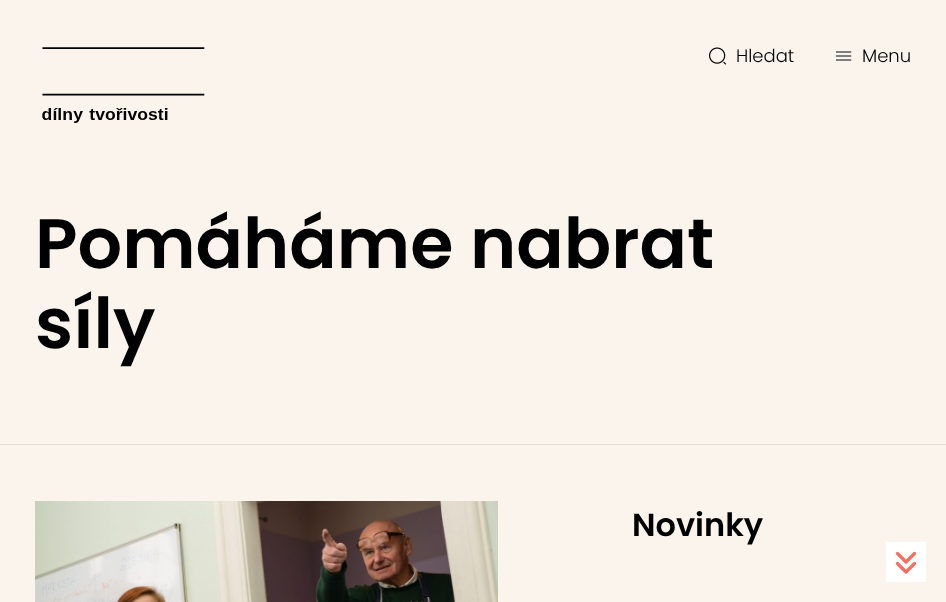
<!DOCTYPE html>
<meta charset="utf-8">
<style>body { margin: 0 } canvas { display: block }</style>
<canvas id="canvas" width="946" height="602"></canvas>
<img id="img1" src="images/1.png" hidden>
<img id="img2" src="images/2.png" hidden>
<img id="img3" src="images/3.png" hidden>
<img id="img4" src="images/4.png" hidden>
<script>
window.onload = function () {
    const canvas = document.getElementById('canvas');
    const context = canvas.getContext('2d');
    context.miterLimit = 4;
    context.fontKerning = 'normal';

    context.fillStyle = 'rgb(250, 244, 236)';
    context.fillRect(0, 0, 946, 602);
    context.drawImage(document.getElementById('img1'), 42, 47, 163, 76);
    context.drawImage(document.getElementById('img2'), 709, 47, 17, 18);
    context.drawImage(document.getElementById('img3'), 835, 51, 17, 10);
    context.fillStyle = 'rgb(225, 220, 212)';
    context.fillRect(0, 444, 946, 1);
    context.drawImage(document.getElementById('img4'), 35, 501, 463, 101);
    context.fillStyle = 'rgb(255, 255, 255)';
    context.fillRect(886, 542, 40, 40);
    context.beginPath();
    context.moveTo(897.5, 553.5);
    context.lineTo(906, 562);
    context.lineTo(914.5, 553.5);
    context.moveTo(897.5, 563.5);
    context.lineTo(906, 572);
    context.lineTo(914.5, 563.5);
    context.strokeStyle = 'rgb(246, 111, 99)';
    context.lineWidth = 3.3;
    context.lineCap = 'round';
    context.lineJoin = 'round';
    context.stroke();
    context.font = '300 18px Poppins';
    context.fillStyle = 'rgb(0, 0, 0)';
    context.fillText('Hledat', 736, 62);
    context.fillText('Menu', 862, 62);
    context.font = '600 70px Poppins';
    context.fillText('Pomáháme nabrat', 35, 268);
    context.fillText('síly', 35, 348);
    context.font = '600 32px Poppins';
    context.fillText('Novinky', 632, 536);
};
</script>
